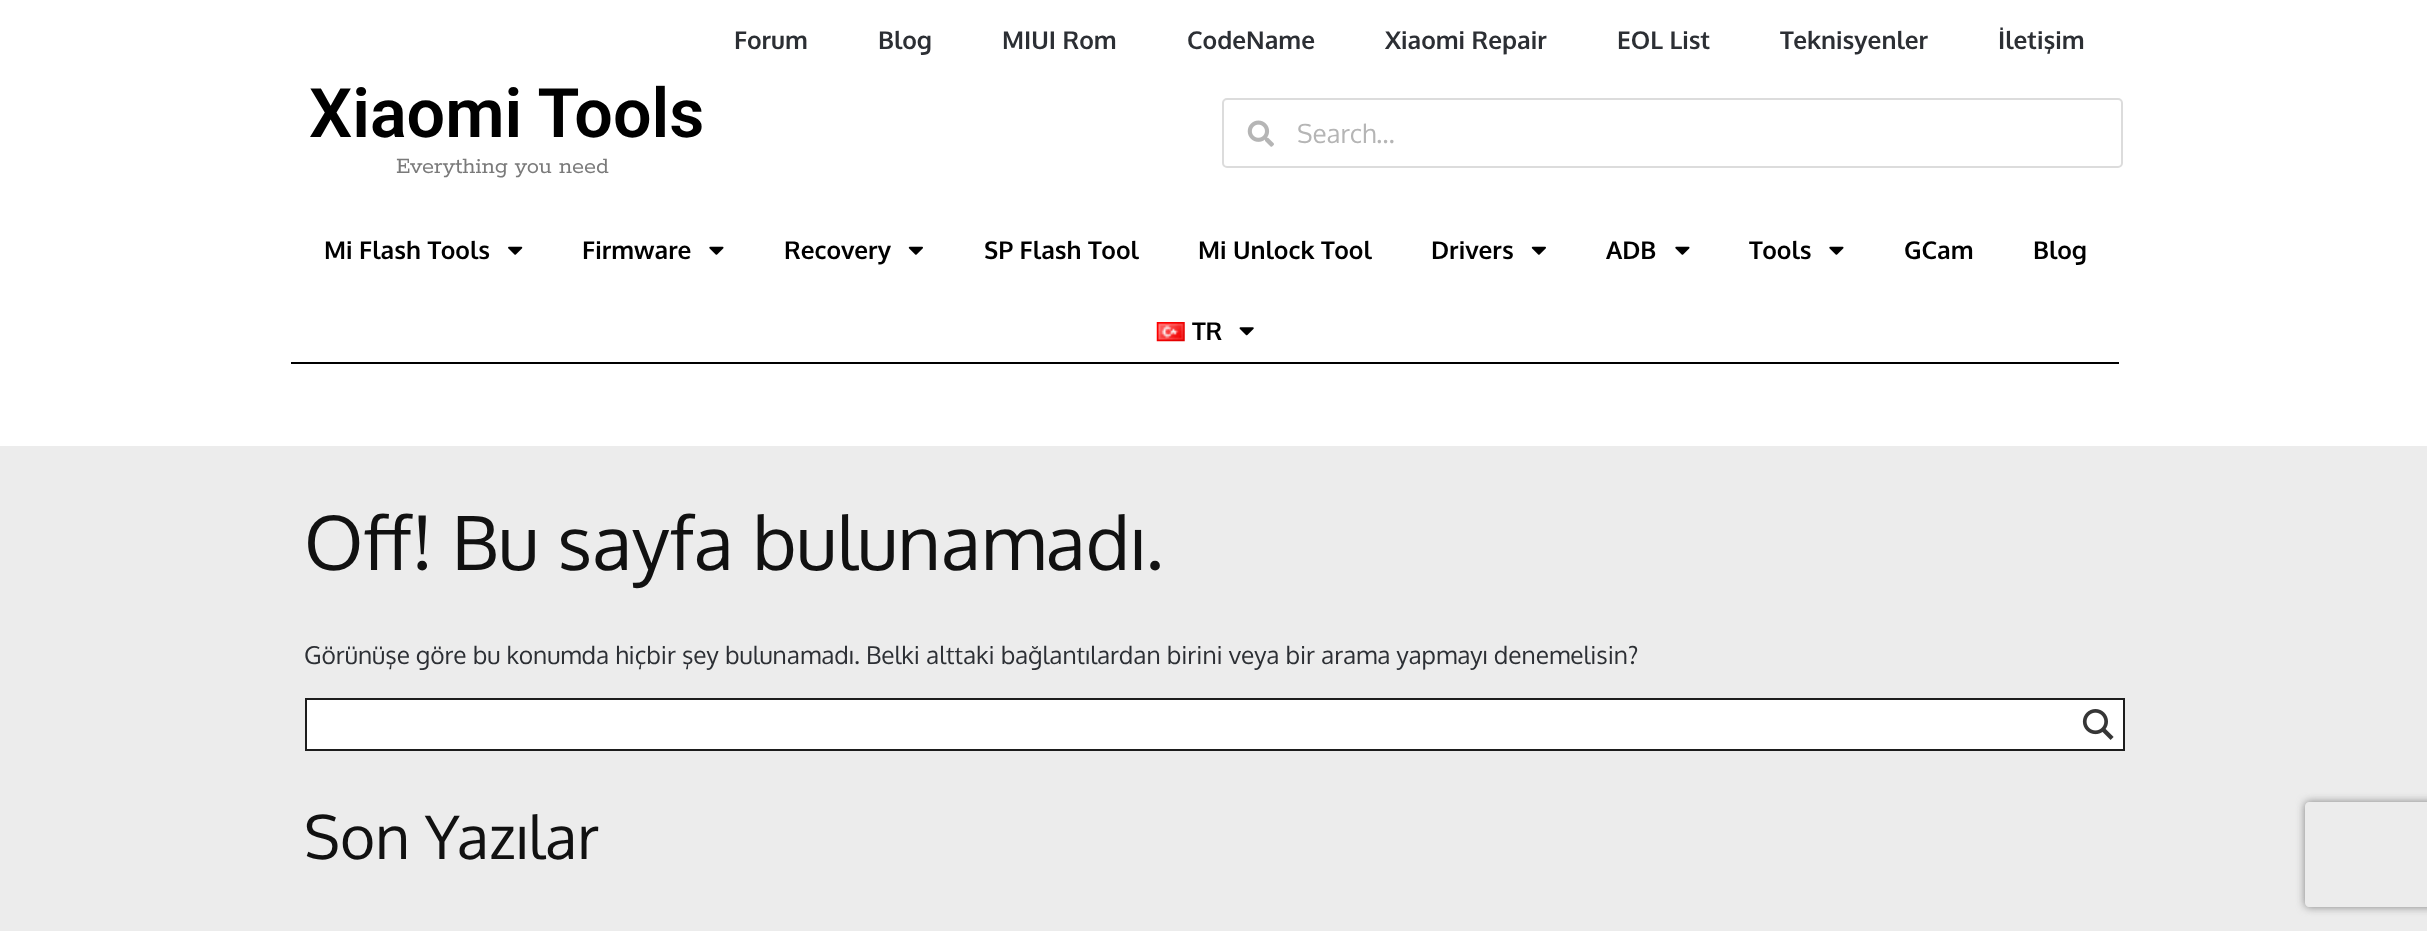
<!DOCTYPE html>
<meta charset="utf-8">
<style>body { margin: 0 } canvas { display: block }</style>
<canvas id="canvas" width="2427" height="931"></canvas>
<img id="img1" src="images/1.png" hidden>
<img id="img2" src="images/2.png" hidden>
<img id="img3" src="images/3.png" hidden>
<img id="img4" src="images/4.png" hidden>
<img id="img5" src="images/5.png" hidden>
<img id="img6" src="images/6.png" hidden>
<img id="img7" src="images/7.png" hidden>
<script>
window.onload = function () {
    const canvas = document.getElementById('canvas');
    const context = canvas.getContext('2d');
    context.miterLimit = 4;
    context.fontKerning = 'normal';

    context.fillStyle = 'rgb(236, 236, 236)';
    context.fillRect(0, 0, 2427, 931);
    context.fillStyle = 'rgb(255, 255, 255)';
    context.fillRect(0, 0, 2427, 446);
    context.beginPath();
    context.roundRect(1223, 99, 899, 68, 4);
    context.strokeStyle = 'rgb(220, 220, 220)';
    context.lineWidth = 2;
    context.stroke();
    context.drawImage(document.getElementById('img1'), 1247, 120, 27, 27);
    context.drawImage(document.getElementById('img2'), 508, 246, 15, 9);
    context.drawImage(document.getElementById('img3'), 709, 246, 15, 9);
    context.drawImage(document.getElementById('img4'), 908, 246, 15, 9);
    context.drawImage(document.getElementById('img4'), 1531, 246, 15, 9);
    context.drawImage(document.getElementById('img3'), 1675, 246, 15, 9);
    context.drawImage(document.getElementById('img3'), 1829, 246, 15, 9);
    context.drawImage(document.getElementById('img5'), 1156, 322, 29, 20);
    context.drawImage(document.getElementById('img6'), 1239, 327, 15, 9);
    context.fillStyle = 'rgb(0, 0, 0)';
    context.fillRect(291, 362, 1828, 2);
    context.fillStyle = 'rgb(255, 255, 255)';
    context.beginPath();
    context.rect(306, 699, 1818, 51);
    context.fill();
    context.strokeStyle = 'rgb(29, 29, 29)';
    context.stroke();
    context.drawImage(document.getElementById('img7'), 2082, 709, 32, 31);
    context.save();
    context.beginPath();
    context.moveTo(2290, 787);
    context.lineTo(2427, 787);
    context.lineTo(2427, 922);
    context.lineTo(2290, 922);
    context.closePath();
    context.moveTo(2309, 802);
    context.lineTo(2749, 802);
    context.bezierCurveTo(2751, 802, 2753, 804, 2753, 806);
    context.lineTo(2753, 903);
    context.bezierCurveTo(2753, 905, 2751, 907, 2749, 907);
    context.lineTo(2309, 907);
    context.bezierCurveTo(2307, 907, 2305, 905, 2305, 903);
    context.lineTo(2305, 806);
    context.bezierCurveTo(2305, 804, 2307, 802, 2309, 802);
    context.closePath();
    context.clip('evenodd');
    context.fillStyle = 'rgb(128, 128, 128)';
    context.filter = 'blur(4.5px)';
    context.beginPath();
    context.roundRect(2305, 802, 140, 105, 4);
    context.fill();
    context.filter = 'none';
    context.restore();
    context.font = 'bold 24.5px Oxygen';
    context.fillStyle = 'rgb(44, 47, 52)';
    context.fillText('Forum', 734, 49);
    context.fillText('Blog', 878, 49);
    context.fillText('MIUI Rom', 1002, 49);
    context.fillText('CodeName', 1187, 49);
    context.fillText('Xiaomi Repair', 1385, 49);
    context.fillText('EOL List', 1617, 49);
    context.fillText('Teknisyenler', 1780, 49);
    context.fillText('İletişim', 1998, 49);
    context.font = '600 68.25px Roboto';
    context.fillStyle = 'rgb(0, 0, 0)';
    context.fillText('Xiaomi Tools', 309, 137);
    context.font = '24.5px Rokkitt';
    context.fillStyle = 'rgb(122, 122, 122)';
    context.fillText('Everything you need', 396, 173);
    context.font = '26px Oxygen';
    context.fillStyle = 'rgb(181, 181, 181)';
    context.fillText('Search...', 1297, 143);
    context.font = 'bold 24.5px Oxygen';
    context.fillStyle = 'rgb(0, 0, 0)';
    context.fillText('Mi Flash Tools', 324, 259);
    context.fillText('Firmware', 582, 259);
    context.fillText('Recovery', 784, 259);
    context.fillText('SP Flash Tool', 984, 259);
    context.fillText('Mi Unlock Tool', 1198, 259);
    context.fillText('Drivers', 1431, 259);
    context.fillText('ADB', 1606, 259);
    context.fillText('Tools', 1749, 259);
    context.fillText('GCam', 1904, 259);
    context.fillText('Blog', 2033, 259);
    context.fillText('TR', 1192, 340);
    context.font = '74.75px Oxygen';
    context.fillStyle = 'rgb(17, 17, 17)';
    context.fillText('Off! Bu sayfa bulunamadı.', 304, 570);
    context.font = '24.5px Oxygen';
    context.fillStyle = 'rgb(44, 47, 52)';
    context.fillText('Görünüşe göre bu konumda hiçbir şey bulunamadı. Belki alttaki bağlantılardan birini veya bir arama yapmayı denemelisin?', 304, 664);
    context.font = '60px Oxygen';
    context.fillStyle = 'rgb(17, 17, 17)';
    context.fillText('Son Yazılar', 304, 859);
};
</script>
